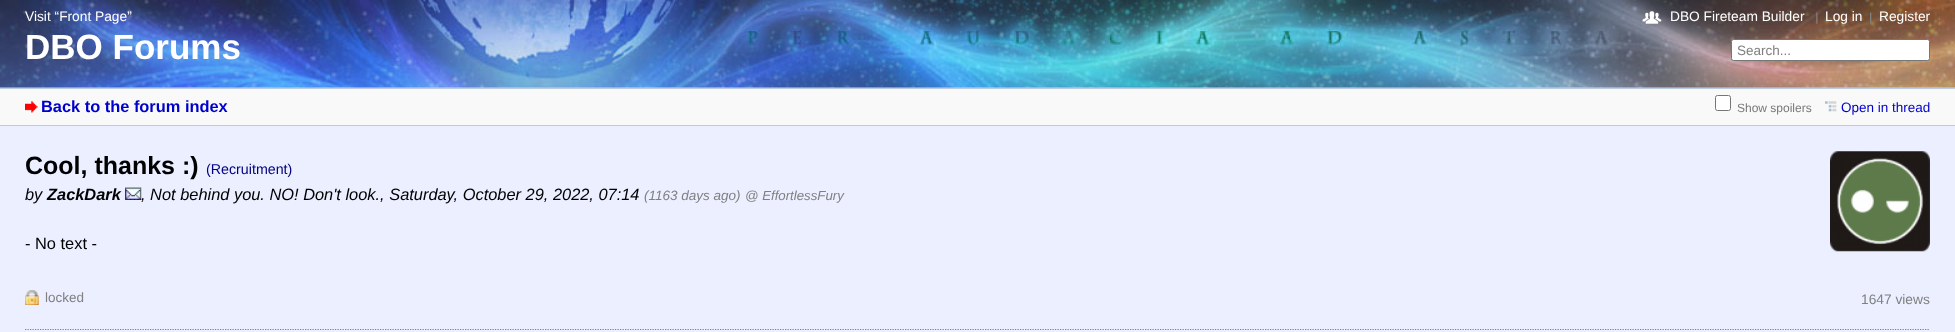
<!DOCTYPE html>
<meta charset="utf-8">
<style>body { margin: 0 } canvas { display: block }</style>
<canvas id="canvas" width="1955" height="332"></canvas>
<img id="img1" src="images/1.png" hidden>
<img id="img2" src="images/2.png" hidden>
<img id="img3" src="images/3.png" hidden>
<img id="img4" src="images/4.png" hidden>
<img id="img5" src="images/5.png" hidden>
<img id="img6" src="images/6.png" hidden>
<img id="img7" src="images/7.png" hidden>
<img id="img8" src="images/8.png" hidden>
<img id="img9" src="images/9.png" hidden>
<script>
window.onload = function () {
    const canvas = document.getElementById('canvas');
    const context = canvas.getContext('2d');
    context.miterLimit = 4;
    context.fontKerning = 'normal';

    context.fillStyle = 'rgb(235, 239, 255)';
    context.fillRect(0, 0, 1955, 332);
    context.fillStyle = 'rgb(207, 213, 237)';
    context.fillRect(0, 87, 1955, 1);
    context.drawImage(document.getElementById('img1'), 0, 0, 1955, 88);
    context.drawImage(document.getElementById('img2'), 1642, 11, 20, 13);
    context.drawImage(document.getElementById('img3'), 1816, 12, 2, 12);
    context.drawImage(document.getElementById('img4'), 1870, 12, 2, 12);
    context.fillStyle = 'rgb(255, 255, 255)';
    context.beginPath();
    context.roundRect(1731.5, 39.5, 198, 21, 2);
    context.fill();
    context.strokeStyle = 'rgb(118, 118, 118)';
    context.stroke();
    context.fillStyle = 'rgb(249, 249, 249)';
    context.fillRect(0, 89, 1955, 36);
    context.fillStyle = 'rgb(186, 203, 223)';
    context.fillRect(0, 88, 1955, 1);
    context.fillRect(0, 125, 1955, 1);
    context.drawImage(document.getElementById('img5'), 25, 101, 13, 12);
    context.fillStyle = 'rgb(255, 255, 255)';
    context.beginPath();
    context.roundRect(1715.5, 95.5, 15, 15, 2);
    context.fill();
    context.stroke();
    context.drawImage(document.getElementById('img6'), 1825, 101, 12, 11);
    context.drawImage(document.getElementById('img7'), 1830, 151, 100, 101);
    context.drawImage(document.getElementById('img8'), 125, 187, 17, 13);
    context.drawImage(document.getElementById('img9'), 25, 290, 14, 15);
    context.beginPath();
    context.moveTo(25, 329.5);
    context.lineTo(1930, 329.5);
    context.strokeStyle = 'rgb(128, 128, 128)';
    context.lineWidth = 1.2;
    context.setLineDash([1.25, 1.25]);
    context.stroke();
    context.font = '13.75px Liberation Sans';
    context.fillText('Visit “Front Page”', 25, 21);
    context.font = 'bold 35px Liberation Sans';
    context.fillText('DBO Forums', 25, 59);
    context.font = '13.75px Liberation Sans';
    context.fillText('DBO Fireteam Builder', 1670, 21);
    context.fillText('Log in', 1825, 21);
    context.fillText('Register', 1879, 21);
    context.font = '13.5px Liberation Sans';
    context.fillStyle = 'rgb(128, 128, 128)';
    context.fillText('Search...', 1737, 55);
    context.font = 'bold 16.4px Liberation Sans';
    context.fillStyle = 'rgb(0, 0, 204)';
    context.fillText('Back to the forum index', 41, 112);
    context.font = '12px Liberation Sans';
    context.fillStyle = 'rgb(120, 120, 120)';
    context.fillText('Show spoilers', 1737, 112);
    context.font = '13.5px Liberation Sans';
    context.fillStyle = 'rgb(0, 0, 204)';
    context.fillText('Open in thread', 1841, 112);
    context.font = 'bold 25px Liberation Sans';
    context.fillStyle = 'rgb(0, 0, 0)';
    context.fillText('Cool, thanks :)', 25, 174);
    context.font = '14.25px Liberation Sans';
    context.fillStyle = 'rgb(0, 0, 128)';
    context.fillText('(Recruitment)', 206, 174);
    context.font = 'italic 16.4px Liberation Sans';
    context.fillStyle = 'rgb(0, 0, 0)';
    context.fillText('by', 25, 200);
    context.font = 'italic bold 16.4px Liberation Sans';
    context.fillText('ZackDark', 47, 200);
    context.font = 'italic 16.4px Liberation Sans';
    context.fillText(', Not behind you. NO! Don\'t look., Saturday, October 29, 2022, 07:14', 141, 200);
    context.font = 'italic 13.5px Liberation Sans';
    context.fillStyle = 'rgb(128, 128, 128)';
    context.fillText('(1163 days ago)', 644, 200);
    context.font = 'italic 13.25px Liberation Sans';
    context.fillText('@ EffortlessFury', 745, 200);
    context.font = '16.4px Liberation Sans';
    context.fillStyle = 'rgb(0, 0, 0)';
    context.fillText('- No text -', 25, 249);
    context.font = '13.5px Liberation Sans';
    context.fillStyle = 'rgb(128, 128, 128)';
    context.fillText('locked', 45, 302);
    context.font = '13.75px Liberation Sans';
    context.fillText('1647 views', 1861, 304);
};
</script>
